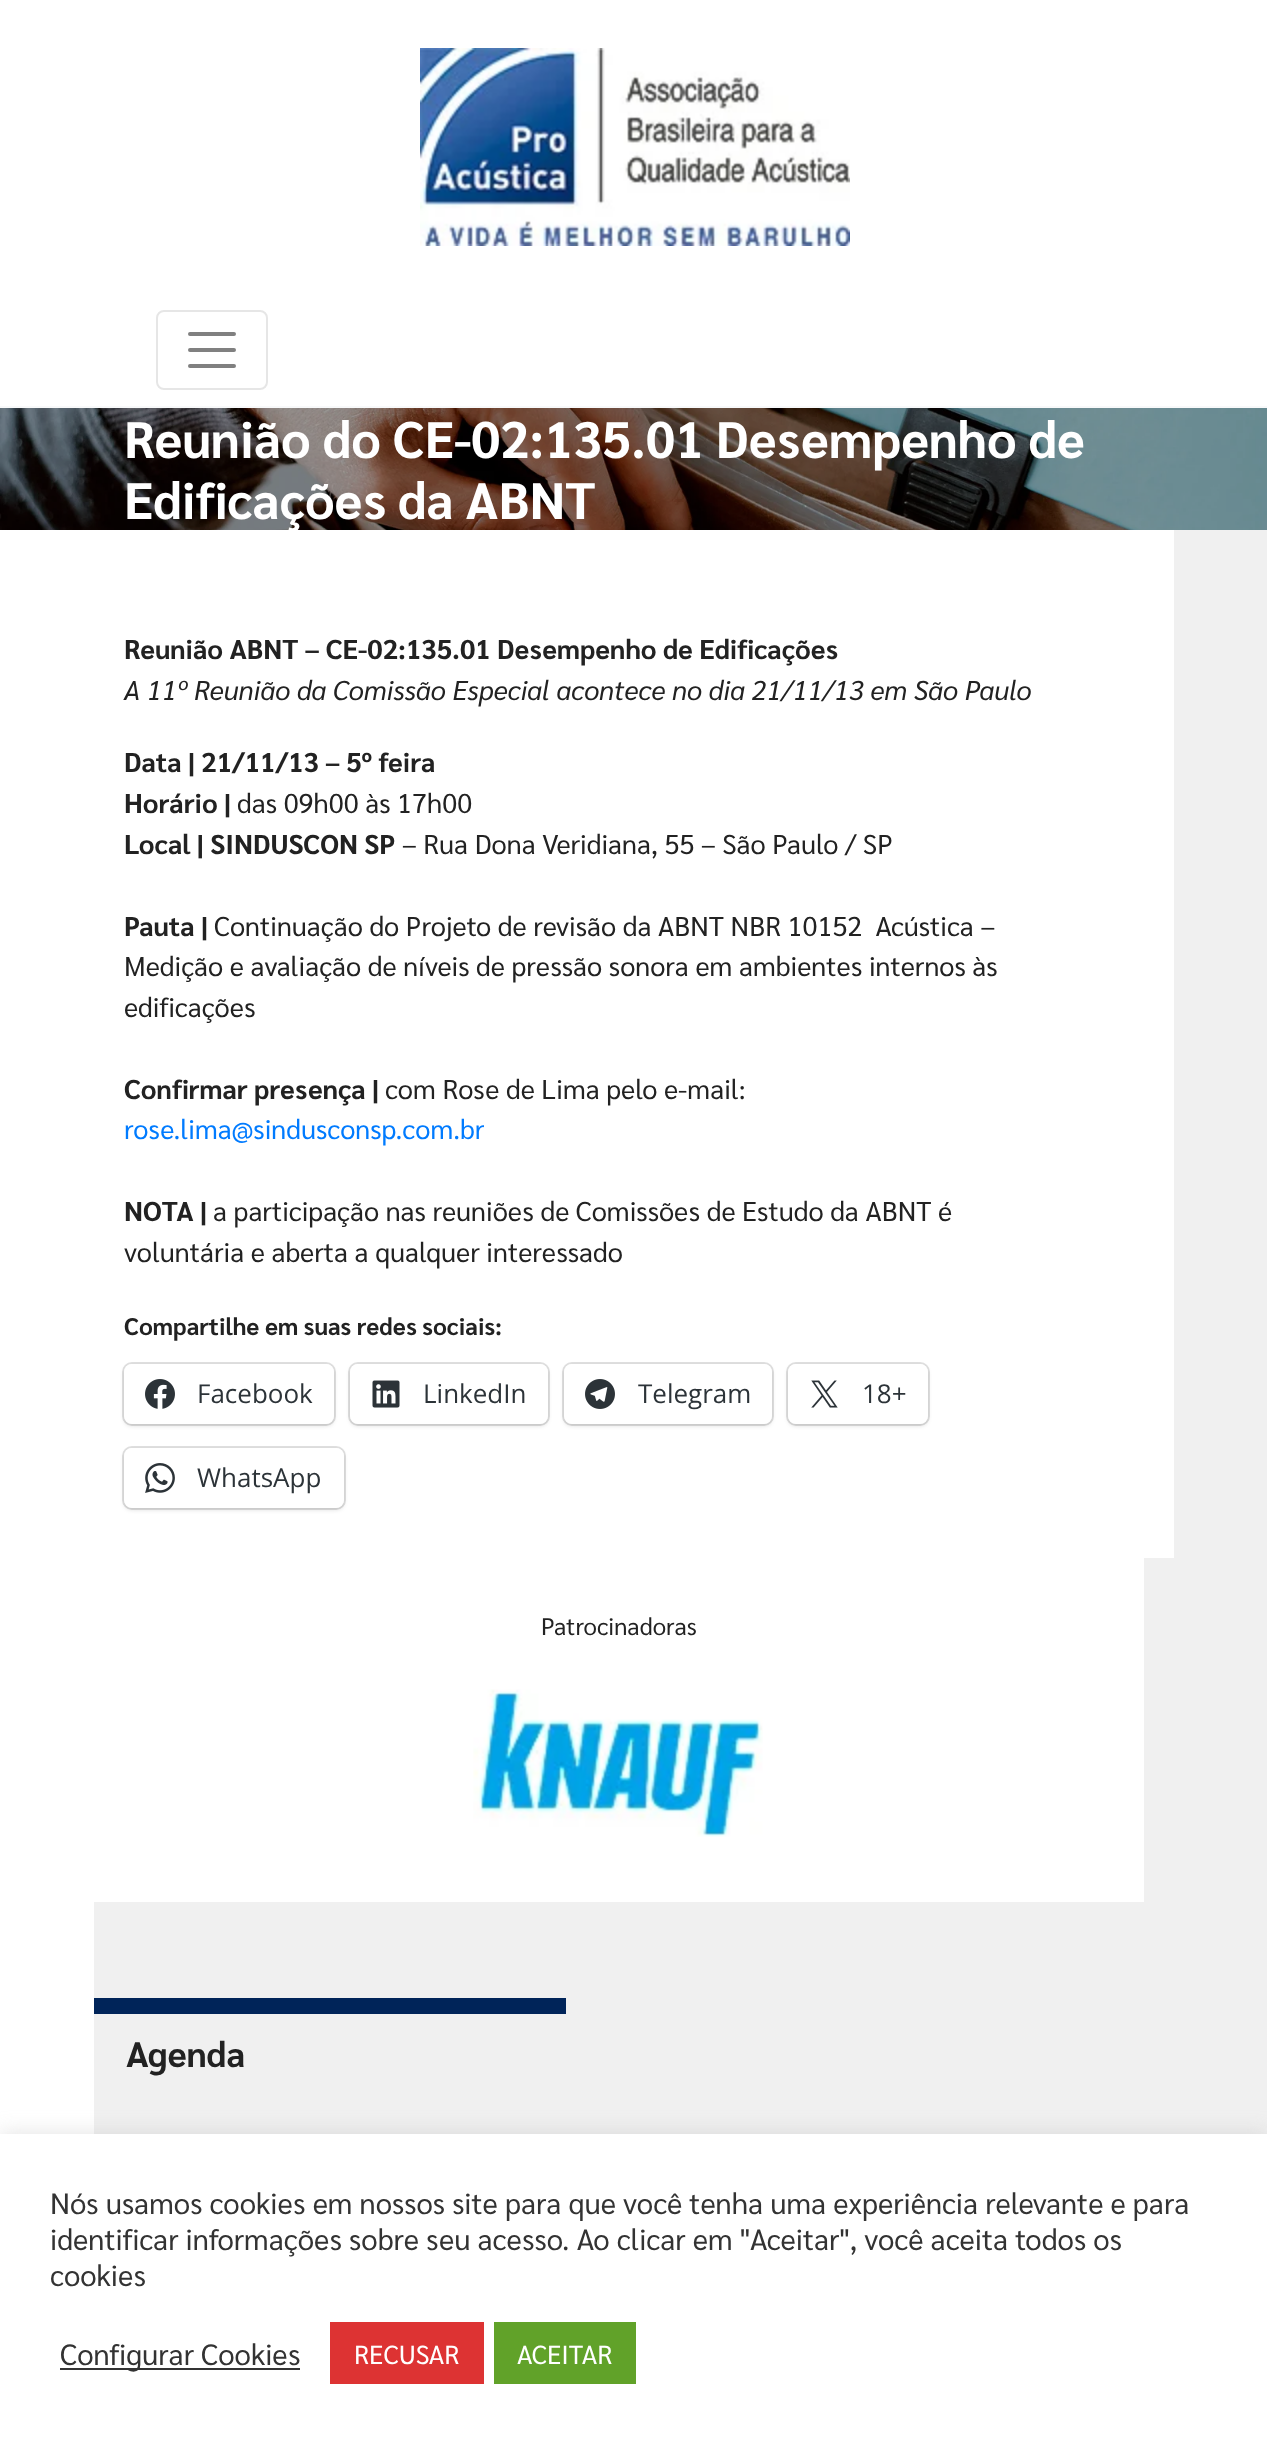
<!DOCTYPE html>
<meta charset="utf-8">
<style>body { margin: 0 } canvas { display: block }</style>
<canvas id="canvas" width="1267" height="2443"></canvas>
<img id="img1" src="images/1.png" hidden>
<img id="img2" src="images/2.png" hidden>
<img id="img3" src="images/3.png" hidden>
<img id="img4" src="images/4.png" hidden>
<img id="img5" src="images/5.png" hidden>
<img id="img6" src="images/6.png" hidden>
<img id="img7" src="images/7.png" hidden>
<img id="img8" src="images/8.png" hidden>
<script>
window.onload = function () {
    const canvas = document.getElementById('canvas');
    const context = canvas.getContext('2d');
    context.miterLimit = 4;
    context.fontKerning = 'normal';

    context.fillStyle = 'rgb(255, 255, 255)';
    context.fillRect(0, 0, 1267, 2443);
    context.fillStyle = 'rgb(248, 249, 250)';
    context.fillRect(0, 406, 1267, 2);
    context.drawImage(document.getElementById('img1'), 420, 48, 430, 198);
    context.beginPath();
    context.roundRect(157, 311, 110, 78, 7);
    context.strokeStyle = 'rgb(230, 230, 230)';
    context.lineWidth = 2;
    context.stroke();
    context.beginPath();
    context.moveTo(190, 334);
    context.lineTo(234, 334);
    context.moveTo(190, 350);
    context.lineTo(234, 350);
    context.moveTo(190, 366);
    context.lineTo(234, 366);
    context.strokeStyle = 'rgb(128, 128, 128)';
    context.lineWidth = 4;
    context.lineCap = 'round';
    context.stroke();
    context.fillStyle = 'rgb(240, 240, 240)';
    context.fillRect(1174, 530, 93, 1604);
    context.drawImage(document.getElementById('img2'), 0, 408, 1267, 122);
    context.beginPath();
    context.roundRect(123, 1363, 212, 62, 9);
    context.strokeStyle = 'rgb(224, 224, 224)';
    context.lineWidth = 2;
    context.stroke();
    context.fillStyle = 'rgba(0, 0, 0, 0.12)';
    context.filter = 'blur(2px)';
    context.beginPath();
    context.roundRect(124, 1366, 210, 60, 8);
    context.fill();
    context.filter = 'none';
    context.fillStyle = 'rgb(255, 255, 255)';
    context.beginPath();
    context.roundRect(124, 1364, 210, 60, 8);
    context.fill();
    context.drawImage(document.getElementById('img3'), 145, 1379, 30, 30);
    context.beginPath();
    context.roundRect(349, 1363, 200, 62, 9);
    context.stroke();
    context.fillStyle = 'rgba(0, 0, 0, 0.12)';
    context.filter = 'blur(2px)';
    context.beginPath();
    context.roundRect(350, 1366, 198, 60, 8);
    context.fill();
    context.filter = 'none';
    context.fillStyle = 'rgb(255, 255, 255)';
    context.beginPath();
    context.roundRect(350, 1364, 198, 60, 8);
    context.fill();
    context.drawImage(document.getElementById('img4'), 372, 1380, 28, 28);
    context.beginPath();
    context.roundRect(563, 1363, 210, 62, 9);
    context.stroke();
    context.fillStyle = 'rgba(0, 0, 0, 0.12)';
    context.filter = 'blur(2px)';
    context.beginPath();
    context.roundRect(564, 1366, 208, 60, 8);
    context.fill();
    context.filter = 'none';
    context.fillStyle = 'rgb(255, 255, 255)';
    context.beginPath();
    context.roundRect(564, 1364, 208, 60, 8);
    context.fill();
    context.drawImage(document.getElementById('img5'), 585, 1379, 30, 30);
    context.beginPath();
    context.roundRect(787, 1363, 142, 62, 9);
    context.stroke();
    context.fillStyle = 'rgba(0, 0, 0, 0.12)';
    context.filter = 'blur(2px)';
    context.beginPath();
    context.roundRect(788, 1366, 140, 60, 8);
    context.fill();
    context.filter = 'none';
    context.fillStyle = 'rgb(255, 255, 255)';
    context.beginPath();
    context.roundRect(788, 1364, 140, 60, 8);
    context.fill();
    context.drawImage(document.getElementById('img6'), 811, 1380, 27, 28);
    context.beginPath();
    context.roundRect(123, 1447, 222, 62, 9);
    context.stroke();
    context.fillStyle = 'rgba(0, 0, 0, 0.12)';
    context.filter = 'blur(2px)';
    context.beginPath();
    context.roundRect(124, 1450, 220, 60, 8);
    context.fill();
    context.filter = 'none';
    context.fillStyle = 'rgb(255, 255, 255)';
    context.beginPath();
    context.roundRect(124, 1448, 220, 60, 8);
    context.fill();
    context.drawImage(document.getElementById('img7'), 145, 1463, 30, 30);
    context.fillStyle = 'rgb(240, 240, 240)';
    context.fillRect(94, 1558, 1080, 576);
    context.fillStyle = 'rgb(255, 255, 255)';
    context.fillRect(94, 1558, 1050, 344);
    context.drawImage(document.getElementById('img8'), 473, 1689, 290, 148);
    context.fillStyle = 'rgb(0, 36, 89)';
    context.fillRect(94, 1998, 472, 16);
    context.fillStyle = 'rgba(172, 171, 171, 0.3)';
    context.filter = 'blur(10px)';
    context.beginPath();
    context.rect(0, 2132, 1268, 310);
    context.fill();
    context.filter = 'none';
    context.fillStyle = 'rgb(255, 255, 255)';
    context.fillRect(0, 2134, 1267, 309);
    context.fillStyle = 'rgb(51, 51, 51)';
    context.fillRect(60, 2368, 240, 2);
    context.fillStyle = 'rgb(221, 51, 51)';
    context.fillRect(330, 2322, 154, 62);
    context.fillStyle = 'rgb(97, 162, 41)';
    context.fillRect(494, 2322, 142, 62);
    context.font = 'bold 51.25px Sarabun';
    context.fillStyle = 'rgb(255, 255, 255)';
    context.fillText('Reunião do CE-02:135.01 Desempenho de', 124, 458);
    context.fillText('Edificações da ABNT', 124, 519);
    context.font = 'bold 27.2px Sarabun';
    context.fillStyle = 'rgb(34, 34, 34)';
    context.fillText('Reunião ABNT – CE-02:135.01 Desempenho de Edificações', 124, 659);
    context.font = 'italic 27.2px Sarabun';
    context.fillText('A 11º Reunião da Comissão Especial acontece no dia 21/11/13 em São Paulo', 124, 700);
    context.font = 'bold 27.2px Sarabun';
    context.fillText('Data | 21/11/13 – 5º feira', 124, 772);
    context.fillText('Horário |', 124, 813);
    context.font = '27.2px Sarabun';
    context.fillText('das 09h00 às 17h00', 237, 813);
    context.font = 'bold 27.2px Sarabun';
    context.fillText('Local | SINDUSCON SP', 124, 854);
    context.font = '27.2px Sarabun';
    context.fillText('– Rua Dona Veridiana, 55 – São Paulo / SP', 402, 854);
    context.font = 'bold 27.2px Sarabun';
    context.fillText('Pauta |', 124, 936);
    context.font = '27.2px Sarabun';
    context.fillText('Continuação do Projeto de revisão da ABNT NBR 10152  Acústica –', 214, 936);
    context.fillText('Medição e avaliação de níveis de pressão sonora em ambientes internos às', 124, 976);
    context.fillText('edificações', 124, 1017);
    context.font = 'bold 27.2px Sarabun';
    context.fillText('Confirmar presença |', 124, 1099);
    context.font = '27.2px Sarabun';
    context.fillText('com Rose de Lima pelo e-mail:', 385, 1099);
    context.fillStyle = 'rgb(0, 123, 255)';
    context.fillText('rose.lima@sindusconsp.com.br', 124, 1139);
    context.font = 'bold 27.2px Sarabun';
    context.fillStyle = 'rgb(34, 34, 34)';
    context.fillText('NOTA |', 124, 1221);
    context.font = '27.2px Sarabun';
    context.fillText('a participação nas reuniões de Comissões de Estudo da ABNT é', 213, 1221);
    context.fillText('voluntária e aberta a qualquer interessado', 124, 1262);
    context.font = 'bold 24px Sarabun';
    context.fillText('Compartilhe em suas redes sociais:', 124, 1335);
    context.font = '26px Open Sans';
    context.fillStyle = 'rgb(44, 51, 56)';
    context.fillText('Facebook', 197, 1403);
    context.fillText('LinkedIn', 423, 1403);
    context.fillText('Telegram', 638, 1403);
    context.fillText('18+', 862, 1403);
    context.fillText('WhatsApp', 197, 1487);
    context.font = '24px Sarabun';
    context.fillStyle = 'rgb(34, 34, 34)';
    context.fillText('Patrocinadoras', 541, 1635);
    context.font = 'bold 35.5px Sarabun';
    context.fillText('Agenda', 126, 2067);
    context.font = '29.35px Sarabun';
    context.fillStyle = 'rgb(51, 51, 51)';
    context.fillText('Nós usamos cookies em nossos site para que você tenha uma experiência relevante e para', 50, 2214);
    context.fillText('identificar informações sobre seu acesso. Ao clicar em "Aceitar", você aceita todos os', 50, 2250);
    context.fillText('cookies', 50, 2286);
    context.fillText('Configurar Cookies', 60, 2365);
    context.font = '26px Sarabun';
    context.fillStyle = 'rgb(255, 255, 255)';
    context.fillText('RECUSAR', 354, 2364);
    context.fillText('ACEITAR', 517, 2364);
};
</script>
